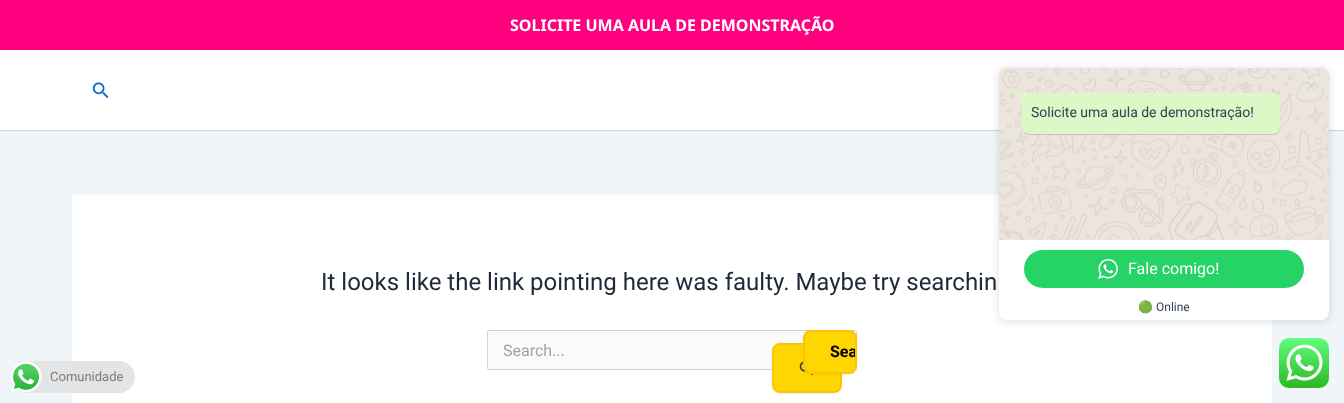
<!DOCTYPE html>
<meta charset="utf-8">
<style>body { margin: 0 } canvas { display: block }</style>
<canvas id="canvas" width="1344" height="403"></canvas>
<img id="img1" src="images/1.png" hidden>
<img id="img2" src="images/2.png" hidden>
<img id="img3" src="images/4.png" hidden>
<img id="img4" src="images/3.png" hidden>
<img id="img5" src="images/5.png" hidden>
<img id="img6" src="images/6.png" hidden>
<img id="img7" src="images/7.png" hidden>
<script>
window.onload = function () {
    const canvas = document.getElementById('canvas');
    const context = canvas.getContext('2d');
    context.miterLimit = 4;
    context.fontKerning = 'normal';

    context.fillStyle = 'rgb(240, 245, 250)';
    context.fillRect(0, 0, 1344, 403);
    context.fillStyle = 'rgb(255, 0, 127)';
    context.fillRect(0, 0, 1344, 50);
    context.fillStyle = 'rgb(255, 255, 255)';
    context.fillRect(0, 50, 1344, 80);
    context.fillStyle = 'rgb(209, 213, 219)';
    context.fillRect(0, 130, 1344, 1);
    context.drawImage(document.getElementById('img1'), 92, 82, 16, 17);
    context.fillStyle = 'rgb(255, 255, 255)';
    context.fillRect(72, 195, 1200, 208);
    context.fillStyle = 'rgb(250, 250, 250)';
    context.beginPath();
    context.roundRect(487.5, 330.5, 369, 39, 1.5);
    context.fill();
    context.strokeStyle = 'rgb(209, 213, 219)';
    context.stroke();
    context.fillStyle = 'rgba(0, 0, 0, 0.05)';
    context.filter = 'blur(1px)';
    context.beginPath();
    context.roundRect(772, 344, 70, 50, 8);
    context.fill();
    context.filter = 'none';
    context.fillStyle = 'rgb(255, 215, 0)';
    context.beginPath();
    context.roundRect(773, 344, 68, 48, 7);
    context.fill();
    context.strokeStyle = 'rgb(255, 195, 0)';
    context.lineWidth = 2;
    context.stroke();
    context.drawImage(document.getElementById('img2'), 799, 361, 14, 15);
    context.fillStyle = 'rgba(0, 0, 0, 0.05)';
    context.filter = 'blur(1px)';
    context.beginPath();
    context.roundRect(803, 331, 54, 44, 8);
    context.fill();
    context.filter = 'none';
    context.fillStyle = 'rgb(255, 215, 0)';
    context.beginPath();
    context.roundRect(804, 331, 52, 42, 7);
    context.fill();
    context.stroke();
    context.fillStyle = 'rgba(0, 0, 0, 0.14)';
    context.filter = 'blur(4.5px)';
    context.beginPath();
    context.roundRect(999, 69, 330, 252, 8);
    context.fill();
    context.filter = 'none';
    context.fillStyle = 'rgb(236, 229, 221)';
    context.beginPath();
    context.roundRect(999, 68, 330, 172, [8, 8, 0, 0]);
    context.fill();
    context.drawImage(document.getElementById('img3'), 999, 68, 330, 172);
    context.drawImage(document.getElementById('img4'), 1307, 82, 8, 8);
    context.fillStyle = 'rgba(0, 0, 0, 0.14)';
    context.filter = 'blur(0.5px)';
    context.beginPath();
    context.roundRect(1022, 94, 258, 41, 7);
    context.fill();
    context.filter = 'none';
    context.fillStyle = 'rgb(220, 248, 198)';
    context.beginPath();
    context.roundRect(1022, 93, 258, 41, [0, 7, 7, 7]);
    context.fill();
    context.beginPath();
    context.moveTo(1014, 93.5);
    context.lineTo(1023, 102);
    context.lineTo(1023, 93);
    context.lineTo(1014, 93);
    context.closePath();
    context.fill();
    context.fillStyle = 'rgb(255, 255, 255)';
    context.fillRect(999, 240, 330, 56);
    context.fillStyle = 'rgb(37, 211, 102)';
    context.beginPath();
    context.roundRect(1024, 250, 280, 38, 19);
    context.fill();
    context.drawImage(document.getElementById('img5'), 1098, 259, 20, 20);
    context.fillStyle = 'rgb(255, 255, 255)';
    context.beginPath();
    context.roundRect(999, 296, 330, 24, [0, 0, 8, 8]);
    context.fill();
    context.drawImage(document.getElementById('img6'), 1279, 338, 50, 50);
    context.fillStyle = 'rgb(228, 228, 228)';
    context.beginPath();
    context.roundRect(10, 361, 125, 32, 16);
    context.fill();
    context.drawImage(document.getElementById('img7'), 10, 361, 32, 32);
    context.font = 'bold 16px Noto Sans';
    context.fillStyle = 'rgb(255, 255, 255)';
    context.fillText('SOLICITE UMA AULA DE DEMONSTRAÇÃO', 510, 31);
    context.font = '24px Roboto';
    context.fillStyle = 'rgb(30, 41, 59)';
    context.fillText('It looks like the link pointing here was faulty. Maybe try searchin', 321, 290);
    context.font = '16px Roboto';
    context.fillStyle = 'rgb(156, 163, 175)';
    context.fillText('Search...', 503, 356);
    context.save();
    context.beginPath();
    context.roundRect(805, 332, 50, 40, 6);
    context.clip();
    context.font = 'bold 16px Roboto';
    context.fillStyle = 'rgb(0, 0, 0)';
    context.fillText('Sea', 830, 357);
    context.restore();
    context.font = '14px Roboto';
    context.fillStyle = 'rgb(51, 65, 85)';
    context.fillText('Solicite uma aula de demonstração!', 1031, 117);
    context.font = '16px Roboto';
    context.fillStyle = 'rgb(255, 255, 255)';
    context.fillText('Fale comigo!', 1128, 274);
    context.font = '12px Noto Color Emoji';
    context.fillStyle = 'rgb(51, 65, 85)';
    context.fillText('🟢', 1138, 311);
    context.font = '12px Roboto';
    context.fillText('Online', 1156, 311);
    context.font = '13px Roboto';
    context.fillStyle = 'rgb(127, 125, 125)';
    context.fillText('Comunidade', 50, 381);
};
</script>
